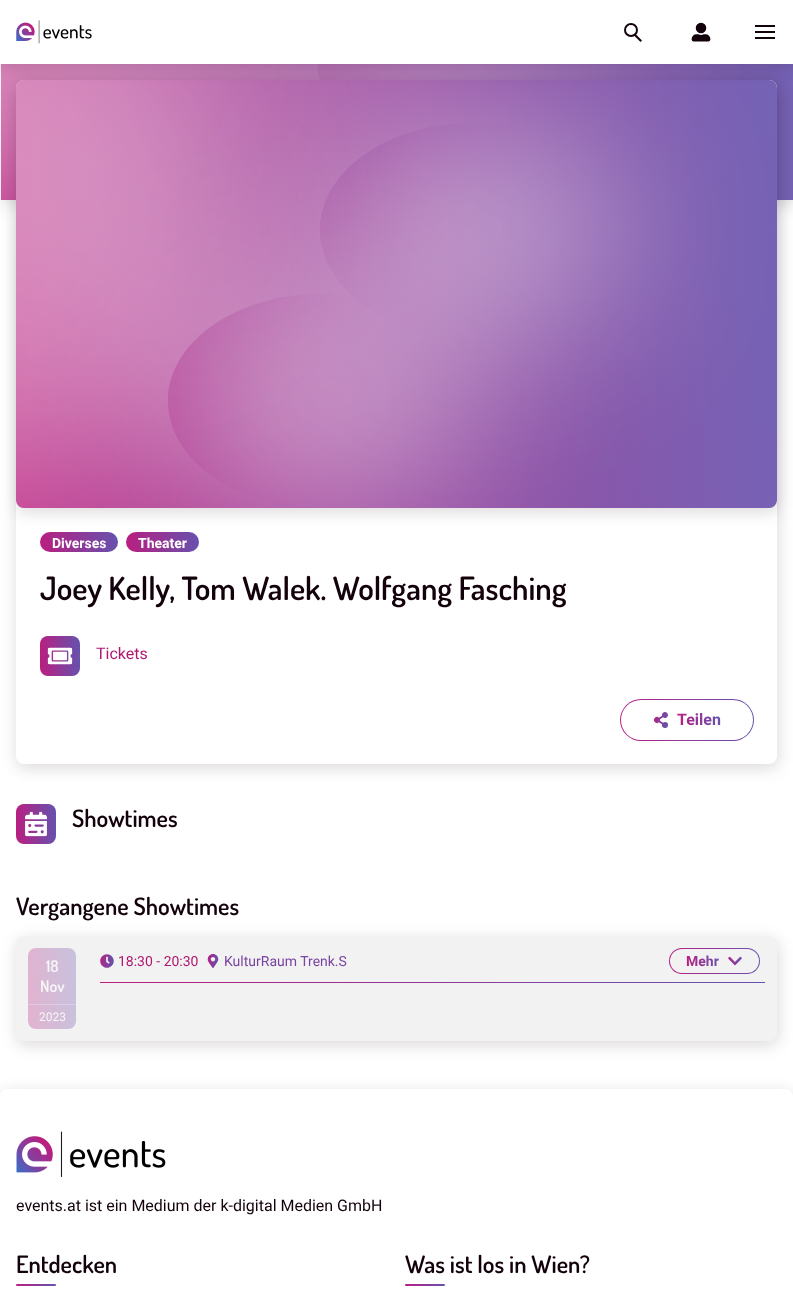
<!DOCTYPE html>
<meta charset="utf-8">
<style>body { margin: 0 } canvas { display: block }</style>
<canvas id="canvas" width="793" height="1291"></canvas>
<img id="img1" src="images/1.png" hidden>
<img id="img2" src="images/2.png" hidden>
<img id="img3" src="images/3.png" hidden>
<img id="img4" src="images/4.png" hidden>
<img id="img5" src="images/5.png" hidden>
<img id="img6" src="images/6.png" hidden>
<img id="img7" src="images/7.png" hidden>
<img id="img8" src="images/8.png" hidden>
<img id="img9" src="images/9.png" hidden>
<script>
window.onload = function () {
    const canvas = document.getElementById('canvas');
    const context = canvas.getContext('2d');
    context.miterLimit = 4;
    context.fontKerning = 'normal';
    let gradient;

    context.fillStyle = 'rgb(255, 255, 255)';
    context.fillRect(0, 0, 793, 1291);
    context.fillStyle = 'rgba(19, 2, 12, 0.15)';
    context.filter = 'blur(8px)';
    context.beginPath();
    context.rect(2, 4, 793, 200);
    context.fill();
    context.filter = 'none';
    gradient = context.createLinearGradient(-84, 121, 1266, 62);
    gradient.addColorStop(0, 'rgb(200, 48, 136)');
    gradient.addColorStop(1, 'rgb(72, 126, 206)');
    context.fillStyle = gradient;
    context.fillRect(1, 64, 792, 136);
    context.fillStyle = 'rgba(19, 2, 12, 0.15)';
    context.filter = 'blur(8px)';
    context.beginPath();
    context.roundRect(17, 84, 761, 684, 8);
    context.fill();
    context.filter = 'none';
    context.fillStyle = 'rgba(255, 255, 255, 0.32)';
    context.filter = 'blur(80px)';
    context.beginPath();
    context.roundRect(-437, -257, 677, 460, 230);
    context.fill();
    context.filter = 'none';
    context.fillStyle = 'rgba(255, 255, 255, 0.44)';
    context.filter = 'blur(80px)';
    context.beginPath();
    context.roundRect(159, 100, 317, 100, 50);
    context.fill();
    context.filter = 'none';
    context.save();
    context.beginPath();
    context.moveTo(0, 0);
    context.lineTo(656, 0);
    context.lineTo(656, 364);
    context.lineTo(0, 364);
    context.closePath();
    context.moveTo(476, 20);
    context.bezierCurveTo(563.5, 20, 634.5, 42.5, 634.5, 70);
    context.bezierCurveTo(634.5, 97.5, 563.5, 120, 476, 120);
    context.bezierCurveTo(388.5, 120, 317.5, 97.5, 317.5, 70);
    context.bezierCurveTo(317.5, 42.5, 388.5, 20, 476, 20);
    context.closePath();
    context.clip('evenodd');
    context.fillStyle = 'rgba(255, 255, 255, 0.16)';
    context.filter = 'blur(80px)';
    context.beginPath();
    context.roundRect(-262, -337, 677, 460, 230);
    context.fill();
    context.filter = 'none';
    context.restore();
    context.filter = 'blur(80px)';
    context.beginPath();
    context.roundRect(318, 20, 317, 100, 50);
    context.fill();
    context.filter = 'none';
    context.fillStyle = 'rgb(255, 255, 255)';
    context.beginPath();
    context.roundRect(16, 80, 761, 684, 8);
    context.fill();
    gradient = context.createLinearGradient(32, 544, 164, 538);
    gradient.addColorStop(0, 'rgb(194, 25, 123)');
    gradient.addColorStop(1, 'rgb(52, 112, 201)');
    context.fillStyle = gradient;
    context.beginPath();
    context.roundRect(40, 532, 78, 20, 10);
    context.fill();
    gradient = context.createLinearGradient(118, 544, 243, 538);
    gradient.addColorStop(0, 'rgb(194, 25, 123)');
    gradient.addColorStop(1, 'rgb(52, 112, 201)');
    context.fillStyle = gradient;
    context.beginPath();
    context.roundRect(126, 532, 73, 20, 10);
    context.fill();
    context.fillStyle = 'rgba(19, 2, 12, 0.15)';
    context.filter = 'blur(8px)';
    context.beginPath();
    context.roundRect(17, 84, 761, 428, 8);
    context.fill();
    context.filter = 'none';
    gradient = context.createLinearGradient(-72, 315, 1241, 257);
    gradient.addColorStop(0, 'rgb(200, 48, 136)');
    gradient.addColorStop(1, 'rgb(72, 126, 206)');
    context.fillStyle = gradient;
    context.beginPath();
    context.roundRect(16, 80, 761, 428, 8);
    context.fill();
    context.fillStyle = 'rgba(19, 2, 12, 0.15)';
    context.filter = 'blur(8px)';
    context.beginPath();
    context.rect(1, 4, 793, 64);
    context.fill();
    context.filter = 'none';
    context.save();
    context.beginPath();
    context.roundRect(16, 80, 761, 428, 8);
    context.clip();
    context.beginPath();
    context.moveTo(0, 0);
    context.lineTo(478, 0);
    context.lineTo(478, 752);
    context.lineTo(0, 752);
    context.closePath();
    context.moveTo(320.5, 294);
    context.bezierCurveTo(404.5, 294, 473, 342, 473, 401);
    context.bezierCurveTo(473, 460, 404.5, 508, 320.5, 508);
    context.bezierCurveTo(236.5, 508, 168, 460, 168, 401);
    context.bezierCurveTo(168, 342, 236.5, 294, 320.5, 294);
    context.closePath();
    context.clip('evenodd');
    context.fillStyle = 'rgba(255, 255, 255, 0.32)';
    context.filter = 'blur(80px)';
    context.beginPath();
    context.roundRect(-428, -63, 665, 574, 287);
    context.fill();
    context.filter = 'none';
    context.restore();
    context.save();
    context.beginPath();
    context.roundRect(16, 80, 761, 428, 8);
    context.clip();
    context.fillStyle = 'rgba(255, 255, 255, 0.44)';
    context.filter = 'blur(80px)';
    context.beginPath();
    context.roundRect(168, 294, 305, 214, 107);
    context.fill();
    context.filter = 'none';
    context.restore();
    context.save();
    context.beginPath();
    context.roundRect(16, 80, 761, 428, 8);
    context.clip();
    context.beginPath();
    context.moveTo(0, 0);
    context.lineTo(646, 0);
    context.lineTo(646, 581);
    context.lineTo(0, 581);
    context.closePath();
    context.moveTo(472.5, 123);
    context.bezierCurveTo(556.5, 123, 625, 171, 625, 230);
    context.bezierCurveTo(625, 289, 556.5, 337, 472.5, 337);
    context.bezierCurveTo(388.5, 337, 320, 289, 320, 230);
    context.bezierCurveTo(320, 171, 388.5, 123, 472.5, 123);
    context.closePath();
    context.clip('evenodd');
    context.fillStyle = 'rgba(255, 255, 255, 0.16)';
    context.filter = 'blur(80px)';
    context.beginPath();
    context.roundRect(-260, -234, 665, 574, 287);
    context.fill();
    context.filter = 'none';
    context.restore();
    context.save();
    context.beginPath();
    context.roundRect(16, 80, 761, 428, 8);
    context.clip();
    context.fillStyle = 'rgba(255, 255, 255, 0.44)';
    context.filter = 'blur(80px)';
    context.beginPath();
    context.roundRect(320, 123, 305, 214, 107);
    context.fill();
    context.filter = 'none';
    context.restore();
    context.fillStyle = 'rgb(255, 255, 255)';
    context.fillRect(0, 0, 793, 64);
    context.drawImage(document.getElementById('img1'), 16, 20, 76, 24);
    context.beginPath();
    context.arc(631, 30, 6, 0, 2 * Math.PI);
    context.strokeStyle = 'rgb(19, 2, 12)';
    context.lineWidth = 2;
    context.stroke();
    context.fillStyle = 'rgb(19, 2, 12)';
    context.beginPath();
    context.moveTo(635, 33.5);
    context.lineTo(642, 40.5);
    context.lineTo(640.5, 42);
    context.lineTo(633.5, 35);
    context.closePath();
    context.fill();
    context.drawImage(document.getElementById('img2'), 691, 22, 20, 20);
    context.fillRect(755, 31, 20, 2);
    context.fillRect(755, 25, 20, 2);
    context.fillRect(755, 37, 20, 2);
    gradient = context.createLinearGradient(35, 657, 105, 654);
    gradient.addColorStop(0, 'rgb(194, 25, 123)');
    gradient.addColorStop(1, 'rgb(52, 112, 201)');
    context.fillStyle = gradient;
    context.beginPath();
    context.roundRect(40, 636, 40, 40, 8);
    context.fill();
    context.drawImage(document.getElementById('img3'), 47, 647, 26, 18);
    gradient = context.createLinearGradient(605, 724, 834, 714);
    gradient.addColorStop(0, 'rgb(194, 25, 123)');
    gradient.addColorStop(1, 'rgb(52, 112, 201)');
    context.fillStyle = gradient;
    context.beginPath();
    context.roundRect(620, 699, 134, 42, 21);
    context.fill();
    context.fillStyle = 'rgb(255, 255, 255)';
    context.beginPath();
    context.roundRect(621, 700, 132, 40, 20);
    context.fill();
    context.drawImage(document.getElementById('img4'), 653, 712, 15, 16);
    gradient = context.createLinearGradient(11, 825, 81, 822);
    gradient.addColorStop(0, 'rgb(194, 25, 123)');
    gradient.addColorStop(1, 'rgb(52, 112, 201)');
    context.fillStyle = gradient;
    context.beginPath();
    context.roundRect(16, 804, 40, 40, 8);
    context.fill();
    context.drawImage(document.getElementById('img5'), 25, 811, 22, 26);
    context.fillStyle = 'rgba(19, 2, 12, 0.15)';
    context.filter = 'blur(8px)';
    context.beginPath();
    context.roundRect(17, 940, 761, 105, 8);
    context.fill();
    context.filter = 'none';
    context.fillStyle = 'rgb(242, 242, 242)';
    context.beginPath();
    context.roundRect(16, 936, 761, 105, 8);
    context.fill();
    gradient = context.createLinearGradient(21, 990, 108, 986);
    gradient.addColorStop(0, 'rgb(228, 177, 206)');
    gradient.addColorStop(1, 'rgb(185, 203, 230)');
    context.fillStyle = gradient;
    context.beginPath();
    context.roundRect(28, 948, 48, 81, 8);
    context.fill();
    gradient = context.createLinearGradient(21, 990, 108, 986);
    gradient.addColorStop(0, 'rgb(233, 197, 218)');
    gradient.addColorStop(1, 'rgb(203, 216, 235)');
    context.fillStyle = gradient;
    context.fillRect(28, 1004, 48, 1);
    context.drawImage(document.getElementById('img6'), 100, 954, 14, 14);
    context.drawImage(document.getElementById('img7'), 207, 954, 12, 14);
    gradient = context.createLinearGradient(659, 963, 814, 957);
    gradient.addColorStop(0, 'rgb(194, 25, 123)');
    gradient.addColorStop(1, 'rgb(52, 112, 201)');
    context.fillStyle = gradient;
    context.beginPath();
    context.roundRect(669, 948, 91, 26, 13);
    context.fill();
    context.fillStyle = 'rgb(242, 242, 242)';
    context.beginPath();
    context.roundRect(670, 949, 89, 24, 12);
    context.fill();
    context.drawImage(document.getElementById('img8'), 728, 956, 14, 10);
    gradient = context.createLinearGradient(33, 1000, 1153, 951);
    gradient.addColorStop(0, 'rgb(194, 25, 123)');
    gradient.addColorStop(1, 'rgb(52, 112, 201)');
    context.fillStyle = gradient;
    context.fillRect(100, 982, 665, 1);
    context.save();
    context.beginPath();
    context.moveTo(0, 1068);
    context.lineTo(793, 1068);
    context.lineTo(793, 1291);
    context.lineTo(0, 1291);
    context.closePath();
    context.moveTo(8, 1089);
    context.lineTo(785, 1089);
    context.bezierCurveTo(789.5, 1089, 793, 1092.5, 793, 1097);
    context.lineTo(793, 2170);
    context.lineTo(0, 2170);
    context.lineTo(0, 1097);
    context.bezierCurveTo(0, 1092.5, 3.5, 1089, 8, 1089);
    context.closePath();
    context.clip('evenodd');
    context.fillStyle = 'rgba(19, 2, 12, 0.15)';
    context.filter = 'blur(8px)';
    context.beginPath();
    context.roundRect(1, 1093, 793, 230, 8);
    context.fill();
    context.filter = 'none';
    context.restore();
    context.drawImage(document.getElementById('img9'), 16, 1131, 150, 46);
    gradient = context.createLinearGradient(12, 1286, 79, 1283);
    gradient.addColorStop(0, 'rgb(194, 25, 123)');
    gradient.addColorStop(1, 'rgb(52, 112, 201)');
    context.fillStyle = gradient;
    context.beginPath();
    context.roundRect(16, 1284, 40, 2, 1);
    context.fill();
    gradient = context.createLinearGradient(401, 1286, 468, 1283);
    gradient.addColorStop(0, 'rgb(194, 25, 123)');
    gradient.addColorStop(1, 'rgb(52, 112, 201)');
    context.fillStyle = gradient;
    context.beginPath();
    context.roundRect(405, 1284, 40, 2, 1);
    context.fill();
    context.font = 'bold 14px Roboto';
    context.fillStyle = 'rgb(255, 255, 255)';
    context.fillText('Diverses', 52, 548);
    context.fillText('Theater', 138, 548);
    context.font = '200 32px Dosis';
    context.fillStyle = 'rgb(19, 2, 12)';
    context.fillText('Joey Kelly, Tom Walek. Wolfgang Fasching', 40, 600);
    context.font = '16px Roboto';
    context.fillStyle = 'rgb(175, 23, 111)';
    context.fillText('Tickets', 96, 659);
    context.font = 'bold 16px Roboto';
    gradient = context.createLinearGradient(672, 721, 748, 718);
    gradient.addColorStop(0, 'rgb(194, 25, 123)');
    gradient.addColorStop(1, 'rgb(52, 112, 201)');
    context.fillStyle = gradient;
    context.fillText('Teilen', 677, 725);
    context.font = '200 24px Dosis';
    context.fillStyle = 'rgb(19, 2, 12)';
    context.fillText('Showtimes', 72, 827);
    context.fillText('Vergangene Showtimes', 16, 915);
    context.font = '200 16px Dosis';
    context.fillStyle = 'rgb(246, 246, 246)';
    context.fillText('18', 46, 972);
    context.fillText('Nov', 40, 992);
    context.font = '12px Roboto';
    context.fillText('2023', 39, 1021);
    context.font = '14px Roboto';
    context.fillStyle = 'rgb(175, 23, 111)';
    context.fillText('18:30 - 20:30', 118, 966);
    context.fillStyle = 'rgb(122, 68, 162)';
    context.fillText('KulturRaum Trenk.S', 224, 966);
    context.font = 'bold 14px Roboto';
    gradient = context.createLinearGradient(683, 962, 739, 959);
    gradient.addColorStop(0, 'rgb(194, 25, 123)');
    gradient.addColorStop(1, 'rgb(52, 112, 201)');
    context.fillStyle = gradient;
    context.fillText('Mehr', 686, 966);
    context.font = '16px Roboto';
    context.fillStyle = 'rgb(19, 2, 12)';
    context.fillText('events.at ist ein Medium der k-digital Medien GmbH', 16, 1211);
    context.font = '200 24px Dosis';
    context.fillText('Entdecken', 16, 1273);
    context.fillText('Was ist los in Wien?', 405, 1273);
};
</script>
